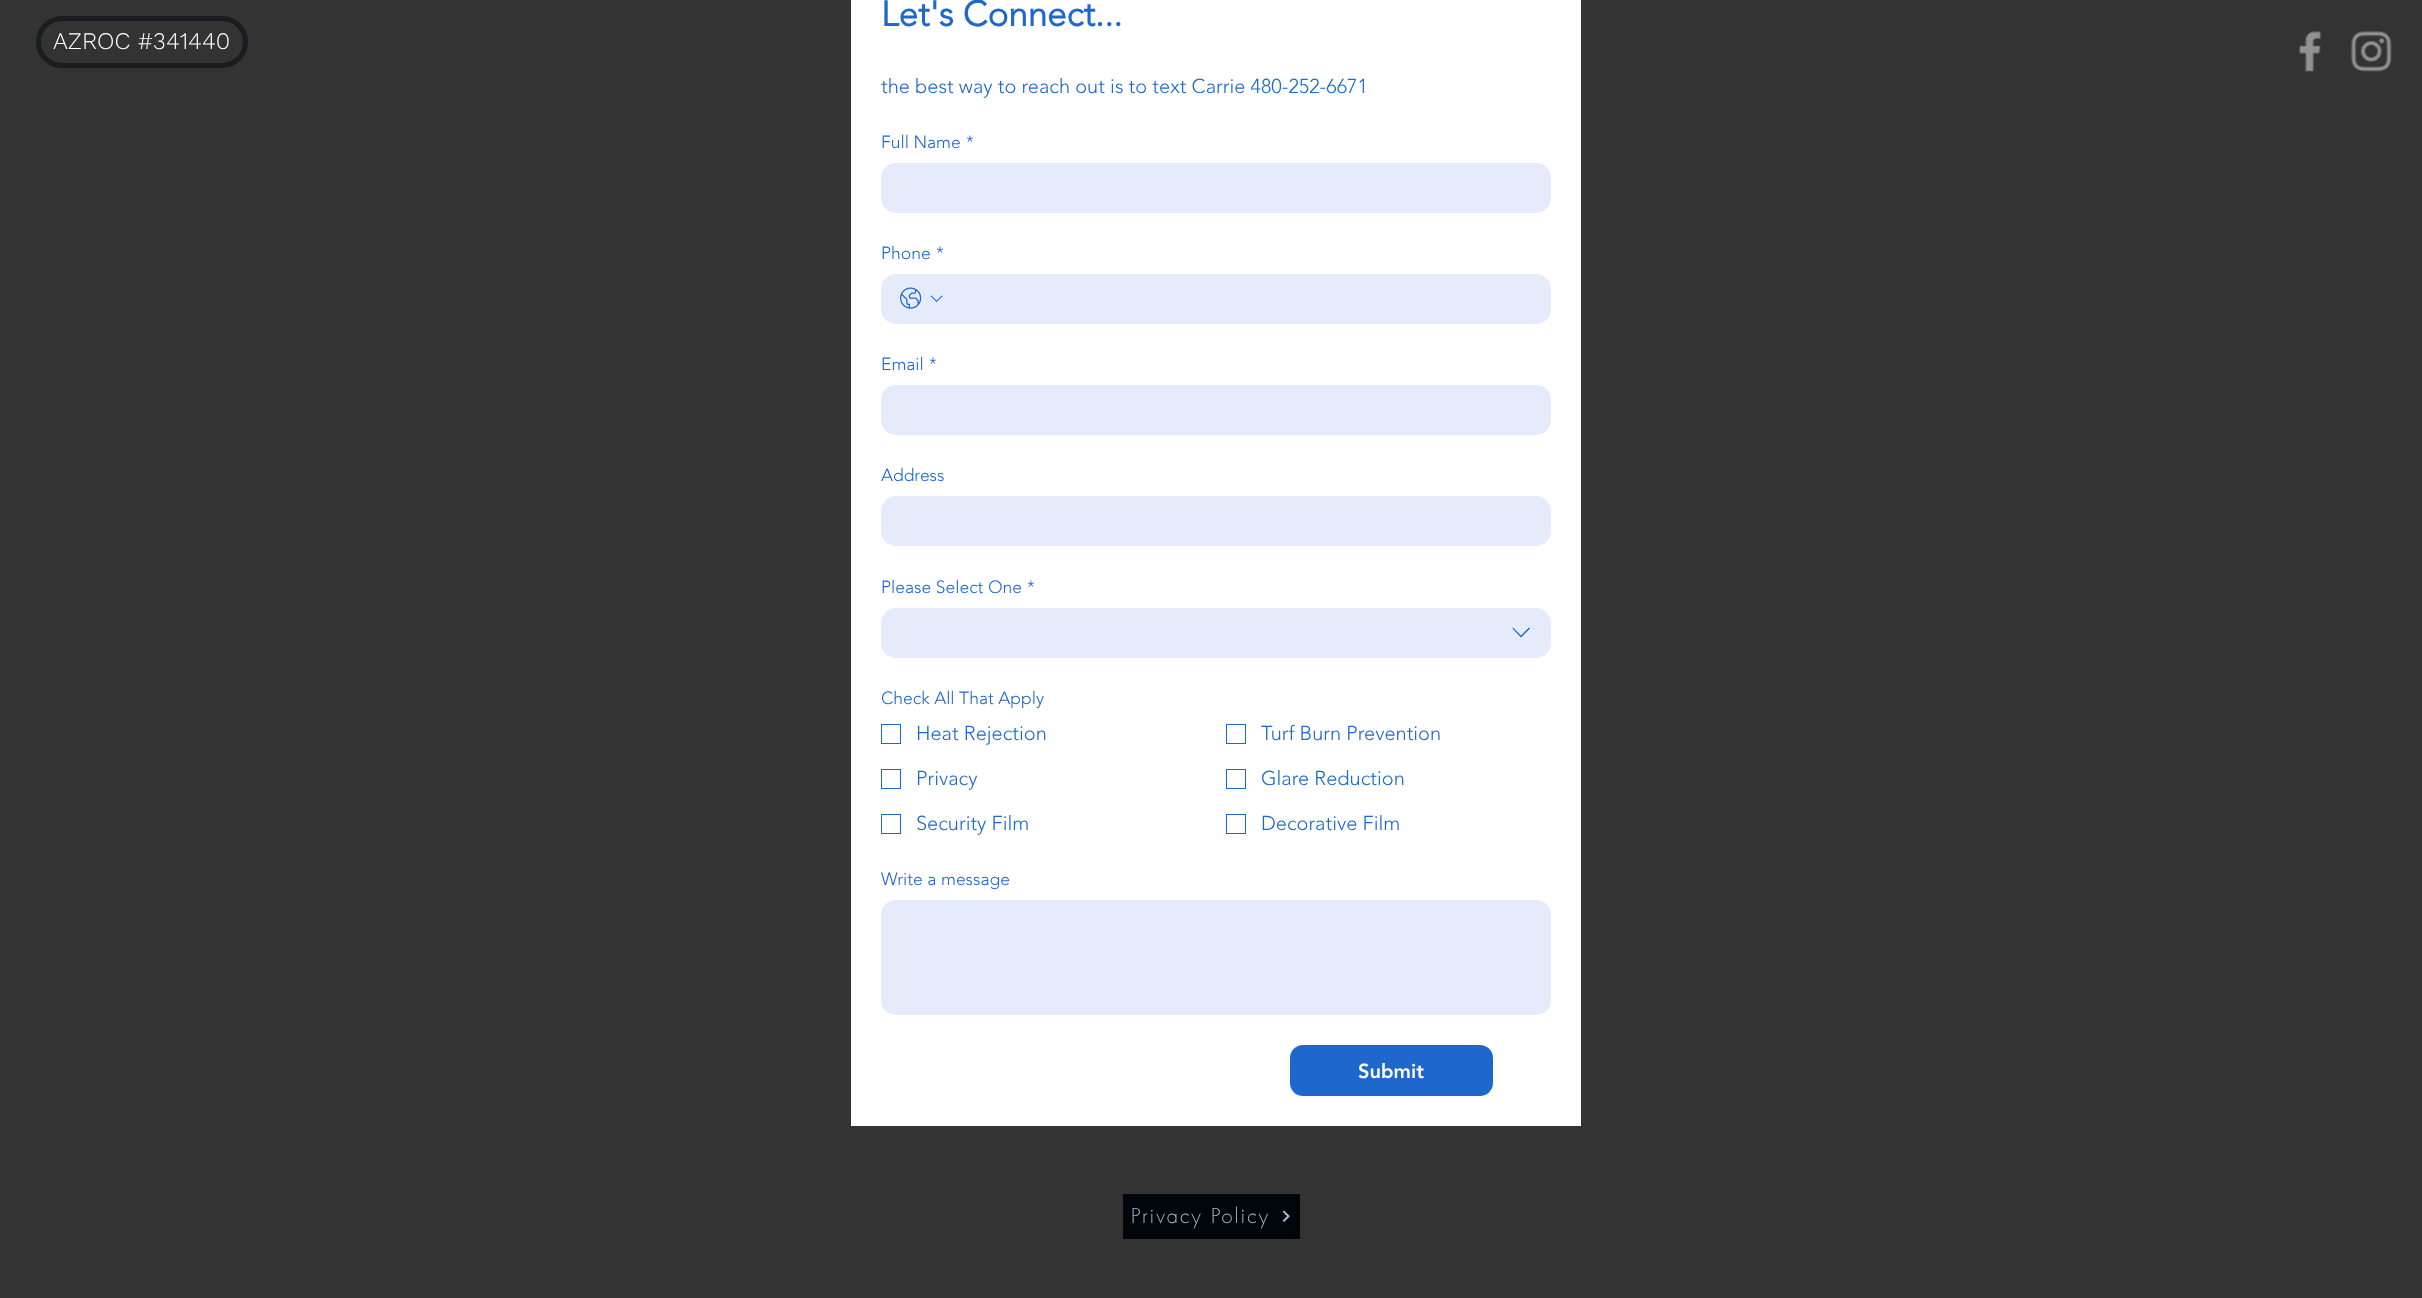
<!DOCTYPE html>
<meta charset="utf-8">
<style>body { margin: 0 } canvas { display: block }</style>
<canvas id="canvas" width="2422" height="1298"></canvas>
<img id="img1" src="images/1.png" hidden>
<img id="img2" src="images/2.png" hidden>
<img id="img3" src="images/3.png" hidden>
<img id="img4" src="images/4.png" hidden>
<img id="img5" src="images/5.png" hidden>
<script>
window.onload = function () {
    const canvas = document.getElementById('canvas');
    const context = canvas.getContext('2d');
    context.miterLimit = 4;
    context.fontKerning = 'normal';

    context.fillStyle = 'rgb(51, 51, 51)';
    context.fillRect(0, 0, 2422, 1298);
    context.beginPath();
    context.roundRect(38.5, 18.5, 207, 47, 23.5);
    context.strokeStyle = 'rgb(26, 28, 31)';
    context.lineWidth = 5;
    context.stroke();
    context.fillStyle = 'rgb(255, 255, 255)';
    context.fillRect(851, 0, 730, 1126);
    context.fillStyle = 'rgb(229, 235, 250)';
    context.beginPath();
    context.roundRect(881, 163, 670, 50, 15);
    context.fill();
    context.beginPath();
    context.roundRect(881, 274, 670, 50, 15);
    context.fill();
    context.drawImage(document.getElementById('img1'), 900, 287, 22, 22);
    context.drawImage(document.getElementById('img2'), 930, 295, 13, 7);
    context.beginPath();
    context.roundRect(881, 385, 670, 50, 15);
    context.fill();
    context.beginPath();
    context.roundRect(881, 496, 670, 50, 15);
    context.fill();
    context.beginPath();
    context.roundRect(881, 608, 670, 50, 15);
    context.fill();
    context.fillStyle = 'rgb(29, 103, 205)';
    context.beginPath();
    context.moveTo(1529, 627.5);
    context.lineTo(1530, 628.5);
    context.lineTo(1521, 637.5);
    context.lineTo(1512.5, 628.5);
    context.lineTo(1513, 627.5);
    context.lineTo(1521, 635.5);
    context.closePath();
    context.fill('evenodd');
    context.strokeStyle = 'rgb(29, 103, 205)';
    context.lineWidth = 1;
    context.strokeRect(881.5, 724.5, 19, 19);
    context.strokeRect(1226.5, 724.5, 19, 19);
    context.strokeRect(881.5, 769.5, 19, 19);
    context.strokeRect(1226.5, 769.5, 19, 19);
    context.strokeRect(881.5, 814.5, 19, 19);
    context.strokeRect(1226.5, 814.5, 19, 19);
    context.fillStyle = 'rgb(229, 235, 250)';
    context.beginPath();
    context.roundRect(881, 900, 670, 115, 15);
    context.fill();
    context.fillStyle = 'rgb(29, 103, 205)';
    context.beginPath();
    context.roundRect(1290, 1045, 203, 51, 13);
    context.fill();
    context.fillStyle = 'rgb(0, 5, 10)';
    context.fillRect(1123, 1194, 177, 45);
    context.drawImage(document.getElementById('img3'), 1282, 1210, 8, 12);
    context.drawImage(document.getElementById('img4'), 2298, 31, 24, 41);
    context.drawImage(document.getElementById('img5'), 2350, 31, 42, 41);
    context.font = '300 23.75px Work Sans';
    context.fillStyle = 'rgb(255, 255, 255)';
    context.fillText('AZROC #341440', 53, 49);
    context.font = 'bold 35px "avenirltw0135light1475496"';
    context.fillStyle = 'rgb(29, 103, 205)';
    context.fillText('Let\'s Connect...', 881, 26);
    context.font = '300 20px "avenirltw0135light1475496"';
    context.fillText('the best way to reach out is to text Carrie 480-252-6671', 881, 93);
    context.font = '300 17.5px "avenirltw0135light1475496"';
    context.fillText('Full Name', 881, 148);
    context.fillText('*', 966, 148);
    context.fillText('Phone', 881, 259);
    context.fillText('*', 936, 259);
    context.fillText('Email', 881, 370);
    context.fillText('*', 929, 370);
    context.fillText('Address', 881, 481);
    context.fillText('Please Select One', 881, 593);
    context.fillText('*', 1027, 593);
    context.fillText('Check All That Apply', 881, 704);
    context.font = '300 20px "avenirltw0135light1475496"';
    context.fillText('Heat Rejection', 916, 740);
    context.fillText('Turf Burn Prevention', 1261, 740);
    context.fillText('Privacy', 916, 785);
    context.fillText('Glare Reduction', 1261, 785);
    context.fillText('Security Film', 916, 830);
    context.fillText('Decorative Film', 1261, 830);
    context.font = '300 17.5px "avenirltw0135light1475496"';
    context.fillText('Write a message', 881, 885);
    context.font = '900 20px "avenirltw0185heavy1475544"';
    context.fillStyle = 'rgb(255, 255, 255)';
    context.fillText('Submit', 1358, 1078);
    context.letterSpacing = '2px';
    context.font = '300 20px futura';
    context.fillStyle = 'rgb(165, 185, 206)';
    context.fillText('Privacy Policy', 1131, 1223);
};
</script>
